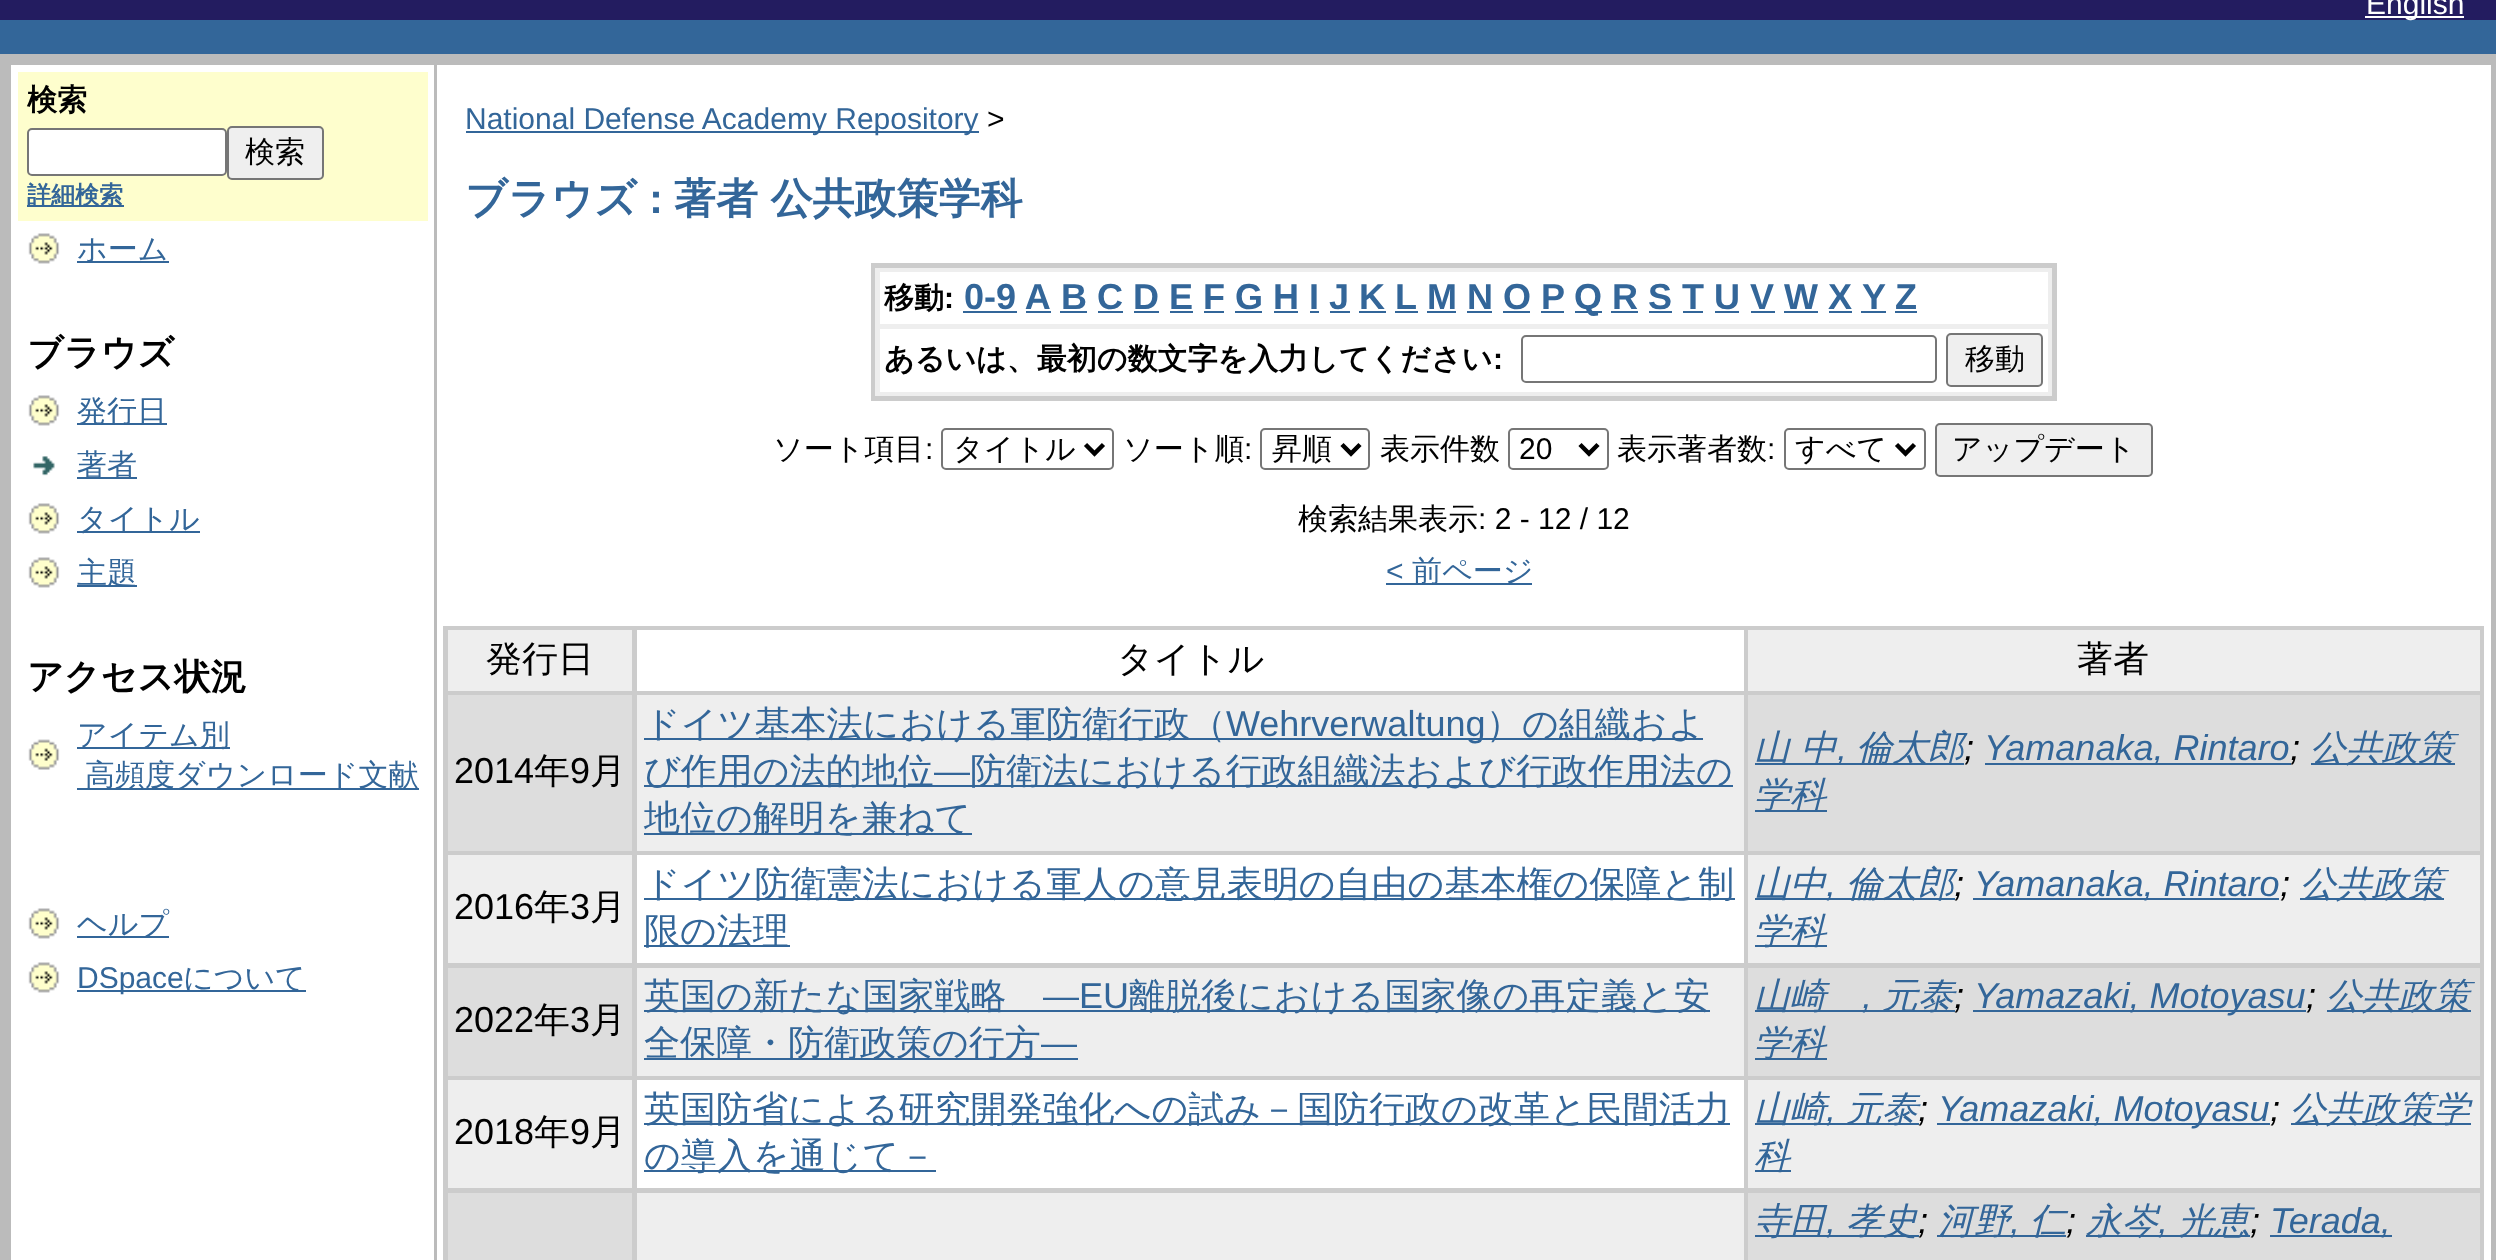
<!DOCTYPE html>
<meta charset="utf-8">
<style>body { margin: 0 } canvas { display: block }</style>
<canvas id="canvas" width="2496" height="1260"></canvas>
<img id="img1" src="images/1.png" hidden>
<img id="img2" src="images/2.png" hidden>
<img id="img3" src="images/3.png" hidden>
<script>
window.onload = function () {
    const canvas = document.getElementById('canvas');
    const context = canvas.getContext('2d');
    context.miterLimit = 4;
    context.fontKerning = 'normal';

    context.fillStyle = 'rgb(187, 187, 187)';
    context.fillRect(0, 0, 2496, 1260);
    context.fillStyle = 'rgb(35, 28, 96)';
    context.fillRect(0, 0, 2496, 20);
    context.fillStyle = 'rgb(255, 255, 255)';
    context.fillRect(2365, 16, 99, 2);
    context.fillStyle = 'rgb(51, 102, 153)';
    context.fillRect(0, 20, 2496, 34);
    context.fillStyle = 'rgb(255, 255, 255)';
    context.fillRect(11, 65, 423, 1195);
    context.fillStyle = 'rgb(254, 254, 205)';
    context.fillRect(18, 72, 410, 149);
    context.fillStyle = 'rgb(255, 255, 255)';
    context.beginPath();
    context.roundRect(28, 129, 198, 46, 4);
    context.fill();
    context.strokeStyle = 'rgb(118, 118, 118)';
    context.lineWidth = 2;
    context.stroke();
    context.fillStyle = 'rgb(239, 239, 239)';
    context.beginPath();
    context.roundRect(228, 127, 95, 52, 4);
    context.fill();
    context.stroke();
    context.fillStyle = 'rgb(51, 102, 153)';
    context.fillRect(27, 205, 97, 2);
    context.drawImage(document.getElementById('img1'), 28, 233, 32, 31);
    context.fillRect(77, 261, 92, 2);
    context.drawImage(document.getElementById('img1'), 28, 395, 32, 31);
    context.fillRect(77, 423, 90, 2);
    context.drawImage(document.getElementById('img2'), 33, 456, 22, 20);
    context.fillRect(77, 477, 60, 2);
    context.drawImage(document.getElementById('img1'), 28, 503, 32, 31);
    context.fillRect(77, 531, 123, 2);
    context.drawImage(document.getElementById('img1'), 28, 557, 32, 31);
    context.fillRect(77, 585, 60, 2);
    context.drawImage(document.getElementById('img3'), 28, 739, 32, 31);
    context.fillRect(77, 747, 153, 2);
    context.fillRect(77, 788, 342, 2);
    context.drawImage(document.getElementById('img1'), 28, 908, 32, 31);
    context.fillRect(77, 936, 92, 2);
    context.drawImage(document.getElementById('img1'), 28, 962, 32, 31);
    context.fillRect(77, 990, 229, 2);
    context.fillStyle = 'rgb(255, 255, 255)';
    context.fillRect(437, 65, 2054, 1195);
    context.fillStyle = 'rgb(51, 102, 153)';
    context.fillRect(466, 131, 513, 2);
    context.fillStyle = 'rgb(204, 204, 204)';
    context.fillRect(871, 263, 1186, 138);
    context.fillStyle = 'rgb(238, 238, 238)';
    context.fillRect(875, 268, 1177, 128);
    context.fillStyle = 'rgb(255, 255, 255)';
    context.fillRect(880, 272, 1168, 52);
    context.fillStyle = 'rgb(51, 102, 153)';
    context.fillRect(963, 311, 54, 2);
    context.fillRect(1060, 311, 27, 2);
    context.fillRect(1427, 311, 29, 2);
    context.fillRect(1575, 311, 27, 2);
    context.fillRect(1861, 311, 25, 2);
    context.fillRect(1895, 311, 22, 2);
    context.fillRect(1026, 311, 25, 2);
    context.fillRect(1098, 311, 25, 2);
    context.fillRect(1134, 311, 25, 2);
    context.fillRect(1170, 311, 23, 2);
    context.fillRect(1204, 311, 20, 2);
    context.fillRect(1235, 311, 27, 2);
    context.fillRect(1274, 311, 24, 2);
    context.fillRect(1310, 311, 9, 2);
    context.fillRect(1330, 311, 20, 2);
    context.fillRect(1359, 311, 27, 2);
    context.fillRect(1395, 311, 23, 2);
    context.fillRect(1467, 311, 25, 2);
    context.fillRect(1503, 311, 27, 2);
    context.fillRect(1541, 311, 23, 2);
    context.fillRect(1611, 311, 27, 2);
    context.fillRect(1649, 311, 23, 2);
    context.fillRect(1683, 311, 20, 2);
    context.fillRect(1715, 311, 24, 2);
    context.fillRect(1751, 311, 24, 2);
    context.fillRect(1784, 311, 34, 2);
    context.fillRect(1829, 311, 23, 2);
    context.fillStyle = 'rgb(255, 255, 255)';
    context.fillRect(880, 329, 1168, 63);
    context.beginPath();
    context.roundRect(1522, 336, 414, 46, 4);
    context.stroke();
    context.fillStyle = 'rgb(239, 239, 239)';
    context.beginPath();
    context.roundRect(1947, 334, 95, 52, 4);
    context.fill();
    context.stroke();
    context.beginPath();
    context.roundRect(942, 429, 171, 40, 4);
    context.stroke();
    context.beginPath();
    context.moveTo(1085.5, 444.5);
    context.lineTo(1094.5, 453.5);
    context.lineTo(1103.5, 444.5);
    context.strokeStyle = 'rgb(0, 0, 0)';
    context.lineWidth = 4.5;
    context.stroke();
    context.beginPath();
    context.roundRect(1261, 429, 108, 40, 4);
    context.strokeStyle = 'rgb(118, 118, 118)';
    context.lineWidth = 2;
    context.stroke();
    context.beginPath();
    context.moveTo(1342, 444.5);
    context.lineTo(1351, 453.5);
    context.lineTo(1360, 444.5);
    context.strokeStyle = 'rgb(0, 0, 0)';
    context.lineWidth = 4.5;
    context.stroke();
    context.beginPath();
    context.roundRect(1509, 429, 99, 40, 4);
    context.strokeStyle = 'rgb(118, 118, 118)';
    context.lineWidth = 2;
    context.stroke();
    context.beginPath();
    context.moveTo(1580, 444.5);
    context.lineTo(1589, 453.5);
    context.lineTo(1598, 444.5);
    context.strokeStyle = 'rgb(0, 0, 0)';
    context.lineWidth = 4.5;
    context.stroke();
    context.beginPath();
    context.roundRect(1785, 429, 140, 40, 4);
    context.strokeStyle = 'rgb(118, 118, 118)';
    context.lineWidth = 2;
    context.stroke();
    context.beginPath();
    context.moveTo(1896.5, 444.5);
    context.lineTo(1905.5, 453.5);
    context.lineTo(1914.5, 444.5);
    context.strokeStyle = 'rgb(0, 0, 0)';
    context.lineWidth = 4.5;
    context.stroke();
    context.beginPath();
    context.roundRect(1936, 424, 216, 52, 4);
    context.fill();
    context.strokeStyle = 'rgb(118, 118, 118)';
    context.lineWidth = 2;
    context.stroke();
    context.fillStyle = 'rgb(51, 102, 153)';
    context.fillRect(1386, 583, 146, 2);
    context.fillStyle = 'rgb(204, 204, 204)';
    context.fillRect(443, 626, 2041, 634);
    context.fillStyle = 'rgb(238, 238, 238)';
    context.fillRect(448, 630, 184, 61);
    context.fillStyle = 'rgb(255, 255, 255)';
    context.fillRect(637, 630, 1107, 61);
    context.fillStyle = 'rgb(238, 238, 238)';
    context.fillRect(1748, 630, 732, 61);
    context.fillStyle = 'rgb(221, 221, 221)';
    context.fillRect(448, 695, 184, 156);
    context.fillStyle = 'rgb(238, 238, 238)';
    context.fillRect(637, 695, 1107, 156);
    context.fillStyle = 'rgb(51, 102, 153)';
    context.fillRect(644, 738, 1059, 2);
    context.fillRect(644, 785, 1089, 2);
    context.fillRect(644, 833, 328, 2);
    context.fillStyle = 'rgb(221, 221, 221)';
    context.fillRect(1748, 695, 732, 156);
    context.fillStyle = 'rgb(51, 102, 153)';
    context.fillRect(1755, 763, 209, 2);
    context.fillRect(1985, 763, 306, 2);
    context.fillRect(2311, 763, 144, 2);
    context.fillRect(1755, 810, 72, 2);
    context.fillStyle = 'rgb(238, 238, 238)';
    context.fillRect(448, 855, 184, 108);
    context.fillStyle = 'rgb(255, 255, 255)';
    context.fillRect(637, 855, 1107, 108);
    context.fillStyle = 'rgb(51, 102, 153)';
    context.fillRect(644, 898, 1091, 2);
    context.fillRect(644, 945, 146, 2);
    context.fillStyle = 'rgb(238, 238, 238)';
    context.fillRect(1748, 855, 732, 108);
    context.fillStyle = 'rgb(51, 102, 153)';
    context.fillRect(1755, 898, 200, 2);
    context.fillRect(1973, 898, 306, 2);
    context.fillRect(2300, 898, 144, 2);
    context.fillRect(1755, 945, 72, 2);
    context.fillStyle = 'rgb(221, 221, 221)';
    context.fillRect(448, 968, 184, 108);
    context.fillStyle = 'rgb(238, 238, 238)';
    context.fillRect(637, 968, 1107, 108);
    context.fillStyle = 'rgb(51, 102, 153)';
    context.fillRect(644, 1010, 1066, 2);
    context.fillRect(644, 1058, 434, 2);
    context.fillStyle = 'rgb(221, 221, 221)';
    context.fillRect(1748, 968, 732, 108);
    context.fillStyle = 'rgb(51, 102, 153)';
    context.fillRect(1755, 1010, 200, 2);
    context.fillRect(1973, 1010, 333, 2);
    context.fillRect(2327, 1010, 144, 2);
    context.fillRect(1755, 1058, 72, 2);
    context.fillStyle = 'rgb(238, 238, 238)';
    context.fillRect(448, 1080, 184, 108);
    context.fillStyle = 'rgb(255, 255, 255)';
    context.fillRect(637, 1080, 1107, 108);
    context.fillStyle = 'rgb(51, 102, 153)';
    context.fillRect(644, 1123, 1086, 2);
    context.fillRect(644, 1170, 292, 2);
    context.fillStyle = 'rgb(238, 238, 238)';
    context.fillRect(1748, 1080, 732, 108);
    context.fillStyle = 'rgb(51, 102, 153)';
    context.fillRect(1937, 1123, 333, 2);
    context.fillRect(2291, 1123, 180, 2);
    context.fillRect(1755, 1123, 164, 2);
    context.fillRect(1755, 1170, 36, 2);
    context.fillStyle = 'rgb(221, 221, 221)';
    context.fillRect(448, 1193, 184, 67);
    context.fillStyle = 'rgb(238, 238, 238)';
    context.fillRect(637, 1193, 1107, 67);
    context.fillStyle = 'rgb(221, 221, 221)';
    context.fillRect(1748, 1193, 732, 67);
    context.fillStyle = 'rgb(51, 102, 153)';
    context.fillRect(2270, 1235, 122, 2);
    context.fillRect(1755, 1235, 164, 2);
    context.fillRect(1937, 1235, 129, 2);
    context.fillRect(2086, 1235, 164, 2);
    context.font = '30px Liberation Sans';
    context.fillStyle = 'rgb(255, 255, 255)';
    context.fillText('English', 2366, 14);
    context.font = 'bold 30px WenQuanYi Zen Hei';
    context.fillStyle = 'rgb(0, 0, 0)';
    context.fillText('検索', 27, 110);
    context.font = '500 30px WenQuanYi Zen Hei';
    context.fillText('検索', 245, 162);
    context.font = 'bold 24px WenQuanYi Zen Hei';
    context.fillStyle = 'rgb(51, 102, 153)';
    context.fillText('詳細検索', 27, 203);
    context.font = '500 30px WenQuanYi Zen Hei';
    context.fillText('ホーム', 77, 259);
    context.font = 'bold 36px WenQuanYi Zen Hei';
    context.fillStyle = 'rgb(0, 0, 0)';
    context.fillText('ブラウズ', 27, 365);
    context.font = '500 30px WenQuanYi Zen Hei';
    context.fillStyle = 'rgb(51, 102, 153)';
    context.fillText('発行日', 77, 421);
    context.fillText('著者', 77, 475);
    context.fillText('タイトル', 77, 529);
    context.fillText('主題', 77, 583);
    context.font = 'bold 36px WenQuanYi Zen Hei';
    context.fillStyle = 'rgb(0, 0, 0)';
    context.fillText('アクセス状況', 27, 689);
    context.font = '500 30px WenQuanYi Zen Hei';
    context.fillStyle = 'rgb(51, 102, 153)';
    context.fillText('アイテム別', 77, 745);
    context.fillText('高頻度ダウンロード文献', 85, 785);
    context.fillText('ヘルプ', 77, 934);
    context.font = '30px Liberation Sans';
    context.fillText('DSpace', 77, 988);
    context.font = '500 30px WenQuanYi Zen Hei';
    context.fillText('について', 183, 988);
    context.font = '30px Liberation Sans';
    context.fillText('National Defense Academy Repository', 465, 129);
    context.fillStyle = 'rgb(0, 0, 0)';
    context.fillText('>', 987, 129);
    context.font = 'bold 42px WenQuanYi Zen Hei';
    context.fillStyle = 'rgb(51, 102, 153)';
    context.fillText('ブラウズ', 465, 213);
    context.font = 'bold 42px Liberation Sans';
    context.fillText(':', 649, 213);
    context.font = 'bold 42px WenQuanYi Zen Hei';
    context.fillText('著者 公共政策学科', 674, 213);
    context.font = 'bold 30px WenQuanYi Zen Hei';
    context.fillStyle = 'rgb(0, 0, 0)';
    context.fillText('移動', 884, 308);
    context.font = 'bold 30px Liberation Sans';
    context.fillText(':', 944, 308);
    context.font = 'bold 36px Liberation Sans';
    context.fillStyle = 'rgb(51, 102, 153)';
    context.fillText('0-9 A', 964, 309);
    context.fillText('B C D E F G H I J K L', 1061, 309);
    context.fillText('M N O P', 1427, 309);
    context.fillText('Q R S T U V W X', 1574, 309);
    context.fillText('Y', 1862, 309);
    context.fillText('Z', 1895, 309);
    context.font = 'bold 30px WenQuanYi Zen Hei';
    context.fillStyle = 'rgb(0, 0, 0)';
    context.fillText('あるいは、最初の数文字を入力してください', 884, 369);
    context.font = 'bold 30px Liberation Sans';
    context.fillText(':', 1493, 369);
    context.font = '500 30px WenQuanYi Zen Hei';
    context.fillText('移動', 1965, 369);
    context.fillText('ソート項目', 773, 459);
    context.font = '30px Liberation Sans';
    context.fillText(':', 925, 459);
    context.font = '500 30px WenQuanYi Zen Hei';
    context.fillText('タイトル', 953, 459);
    context.fillText('ソート順', 1123, 459);
    context.font = '30px Liberation Sans';
    context.fillText(':', 1244, 459);
    context.font = '500 30px WenQuanYi Zen Hei';
    context.fillText('昇順', 1272, 459);
    context.fillText('表示件数', 1380, 459);
    context.font = '30px Liberation Sans';
    context.fillText('20', 1519, 459);
    context.font = '500 30px WenQuanYi Zen Hei';
    context.fillText('表示著者数', 1617, 459);
    context.font = '30px Liberation Sans';
    context.fillText(':', 1767, 459);
    context.font = '500 30px WenQuanYi Zen Hei';
    context.fillText('すべて', 1795, 459);
    context.fillText('アップデート', 1952, 459);
    context.fillText('検索結果表示', 1298, 529);
    context.font = '30px Liberation Sans';
    context.fillText(': 2 - 12 / 12', 1478, 529);
    context.fillStyle = 'rgb(51, 102, 153)';
    context.fillText('<', 1386, 581);
    context.font = '500 30px WenQuanYi Zen Hei';
    context.fillText('前ページ', 1412, 581);
    context.font = '500 36px WenQuanYi Zen Hei';
    context.fillStyle = 'rgb(0, 0, 0)';
    context.fillText('発行日', 486, 671);
    context.fillText('タイトル', 1117, 671);
    context.fillText('著者', 2077, 671);
    context.font = '36px Liberation Sans';
    context.fillText('2014', 454, 783);
    context.font = '500 36px WenQuanYi Zen Hei';
    context.fillText('年', 534, 783);
    context.font = '36px Liberation Sans';
    context.fillText('9', 570, 783);
    context.font = '500 36px WenQuanYi Zen Hei';
    context.fillText('月', 590, 783);
    context.fillStyle = 'rgb(51, 102, 153)';
    context.fillText('ドイツ基本法における軍防衛行政（', 644, 736);
    context.font = '36px Liberation Sans';
    context.fillText('Wehrverwaltung', 1226, 736);
    context.font = '500 36px WenQuanYi Zen Hei';
    context.fillText('）の組織およ', 1486, 736);
    context.fillText('び作用の法的地位', 644, 783);
    context.font = '36px Liberation Sans';
    context.fillText('―', 934, 783);
    context.font = '500 36px WenQuanYi Zen Hei';
    context.fillText('防衛法における行政組織法および行政作用法の', 970, 783);
    context.fillText('地位の解明を兼ねて', 644, 830);
    context.font = 'italic 500 36px WenQuanYi Zen Hei';
    context.fillText('山 中', 1754, 760);
    context.font = 'italic 36px Liberation Sans';
    context.fillText(',', 1837, 760);
    context.font = 'italic 500 36px WenQuanYi Zen Hei';
    context.fillText('倫太郎', 1856, 760);
    context.font = 'italic 36px Liberation Sans';
    context.fillStyle = 'rgb(0, 0, 0)';
    context.fillText(';', 1964, 760);
    context.fillStyle = 'rgb(51, 102, 153)';
    context.fillText('Yamanaka, Rintaro', 1984, 760);
    context.fillStyle = 'rgb(0, 0, 0)';
    context.fillText(';', 2290, 760);
    context.font = 'italic 500 36px WenQuanYi Zen Hei';
    context.fillStyle = 'rgb(51, 102, 153)';
    context.fillText('公共政策', 2310, 760);
    context.fillText('学科', 1754, 807);
    context.font = '36px Liberation Sans';
    context.fillStyle = 'rgb(0, 0, 0)';
    context.fillText('2016', 454, 919);
    context.font = '500 36px WenQuanYi Zen Hei';
    context.fillText('年', 534, 919);
    context.font = '36px Liberation Sans';
    context.fillText('3', 570, 919);
    context.font = '500 36px WenQuanYi Zen Hei';
    context.fillText('月', 590, 919);
    context.fillStyle = 'rgb(51, 102, 153)';
    context.fillText('ドイツ防衛憲法における軍人の意見表明の自由の基本権の保障と制', 644, 896);
    context.fillText('限の法理', 644, 943);
    context.font = 'italic 500 36px WenQuanYi Zen Hei';
    context.fillText('山中', 1754, 896);
    context.font = 'italic 36px Liberation Sans';
    context.fillText(',', 1826, 896);
    context.font = 'italic 500 36px WenQuanYi Zen Hei';
    context.fillText('倫太郎', 1846, 896);
    context.font = 'italic 36px Liberation Sans';
    context.fillStyle = 'rgb(0, 0, 0)';
    context.fillText(';', 1954, 896);
    context.fillStyle = 'rgb(51, 102, 153)';
    context.fillText('Yamanaka, Rintaro', 1974, 896);
    context.fillStyle = 'rgb(0, 0, 0)';
    context.fillText(';', 2280, 896);
    context.font = 'italic 500 36px WenQuanYi Zen Hei';
    context.fillStyle = 'rgb(51, 102, 153)';
    context.fillText('公共政策', 2300, 896);
    context.fillText('学科', 1754, 943);
    context.font = '36px Liberation Sans';
    context.fillStyle = 'rgb(0, 0, 0)';
    context.fillText('2022', 454, 1032);
    context.font = '500 36px WenQuanYi Zen Hei';
    context.fillText('年', 534, 1032);
    context.font = '36px Liberation Sans';
    context.fillText('3', 570, 1032);
    context.font = '500 36px WenQuanYi Zen Hei';
    context.fillText('月', 590, 1032);
    context.fillStyle = 'rgb(51, 102, 153)';
    context.fillText('英国の新たな国家戦略', 644, 1008);
    context.font = '36px Liberation Sans';
    context.fillText('―EU', 1043, 1008);
    context.font = '500 36px WenQuanYi Zen Hei';
    context.fillText('離脱後における国家像の再定義と安', 1129, 1008);
    context.fillText('全保障・防衛政策の行方', 644, 1055);
    context.font = '36px Liberation Sans';
    context.fillText('―', 1041, 1055);
    context.font = 'italic 500 36px WenQuanYi Zen Hei';
    context.fillText('山崎', 1754, 1008);
    context.font = 'italic 36px Liberation Sans';
    context.fillText(',', 1862, 1008);
    context.font = 'italic 500 36px WenQuanYi Zen Hei';
    context.fillText('元泰', 1882, 1008);
    context.font = 'italic 36px Liberation Sans';
    context.fillStyle = 'rgb(0, 0, 0)';
    context.fillText(';', 1954, 1008);
    context.fillStyle = 'rgb(51, 102, 153)';
    context.fillText('Yamazaki, Motoyasu', 1974, 1008);
    context.fillStyle = 'rgb(0, 0, 0)';
    context.fillText(';', 2306, 1008);
    context.font = 'italic 500 36px WenQuanYi Zen Hei';
    context.fillStyle = 'rgb(51, 102, 153)';
    context.fillText('公共政策', 2326, 1008);
    context.fillText('学科', 1754, 1055);
    context.font = '36px Liberation Sans';
    context.fillStyle = 'rgb(0, 0, 0)';
    context.fillText('2018', 454, 1144);
    context.font = '500 36px WenQuanYi Zen Hei';
    context.fillText('年', 534, 1144);
    context.font = '36px Liberation Sans';
    context.fillText('9', 570, 1144);
    context.font = '500 36px WenQuanYi Zen Hei';
    context.fillText('月', 590, 1144);
    context.fillStyle = 'rgb(51, 102, 153)';
    context.fillText('英国防省による研究開発強化への試み－国防行政の改革と民間活力', 644, 1121);
    context.fillText('の導入を通じて－', 644, 1168);
    context.font = 'italic 500 36px WenQuanYi Zen Hei';
    context.fillText('山崎', 1754, 1121);
    context.fillText('元泰', 1846, 1121);
    context.font = 'italic 36px Liberation Sans';
    context.fillStyle = 'rgb(0, 0, 0)';
    context.fillText(';', 1918, 1121);
    context.fillStyle = 'rgb(51, 102, 153)';
    context.fillText('Yamazaki, Motoyasu', 1938, 1121);
    context.fillStyle = 'rgb(0, 0, 0)';
    context.fillText(';', 2270, 1121);
    context.font = 'italic 500 36px WenQuanYi Zen Hei';
    context.fillStyle = 'rgb(51, 102, 153)';
    context.fillText('公共政策学', 2290, 1121);
    context.font = 'italic 36px Liberation Sans';
    context.fillText(',', 1826, 1121);
    context.font = 'italic 500 36px WenQuanYi Zen Hei';
    context.fillText('科', 1754, 1168);
    context.fillText('寺田', 1754, 1233);
    context.fillText('孝史', 1846, 1233);
    context.font = 'italic 36px Liberation Sans';
    context.fillStyle = 'rgb(0, 0, 0)';
    context.fillText(';', 1918, 1233);
    context.font = 'italic 500 36px WenQuanYi Zen Hei';
    context.fillStyle = 'rgb(51, 102, 153)';
    context.fillText('河野', 1938, 1233);
    context.fillText('仁', 2030, 1233);
    context.font = 'italic 36px Liberation Sans';
    context.fillStyle = 'rgb(0, 0, 0)';
    context.fillText(';', 2066, 1233);
    context.font = 'italic 500 36px WenQuanYi Zen Hei';
    context.fillStyle = 'rgb(51, 102, 153)';
    context.fillText('永岑', 2086, 1233);
    context.fillText('光恵', 2178, 1233);
    context.font = 'italic 36px Liberation Sans';
    context.fillText('Terada,', 2270, 1233);
    context.fillText(',', 1826, 1233);
    context.fillText(',', 2010, 1233);
    context.fillText(',', 2158, 1233);
    context.fillStyle = 'rgb(0, 0, 0)';
    context.fillText(';', 2250, 1233);
};
</script>
